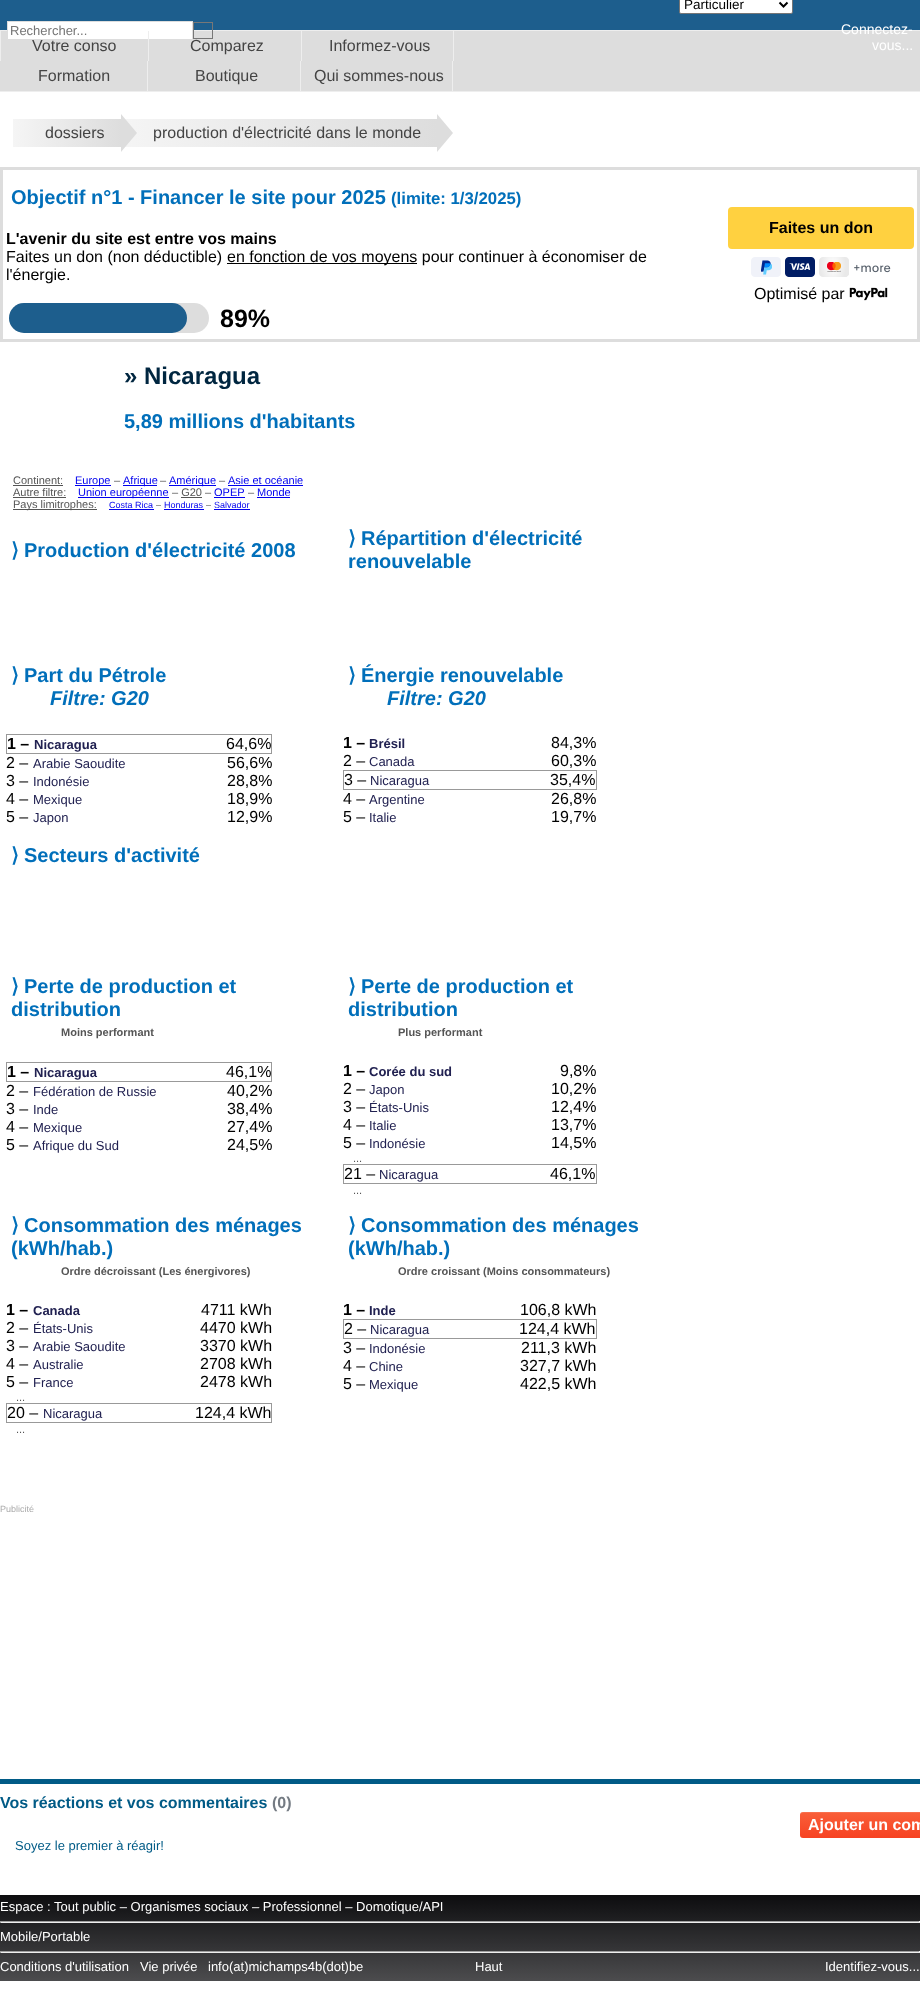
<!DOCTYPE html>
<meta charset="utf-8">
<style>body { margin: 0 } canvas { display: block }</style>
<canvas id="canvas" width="920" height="2005"></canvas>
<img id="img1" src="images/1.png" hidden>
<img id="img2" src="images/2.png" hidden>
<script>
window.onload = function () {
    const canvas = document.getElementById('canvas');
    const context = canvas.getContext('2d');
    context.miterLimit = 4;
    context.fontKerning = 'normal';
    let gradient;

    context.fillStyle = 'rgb(255, 255, 255)';
    context.fillRect(0, 0, 920, 2005);
    context.fillStyle = 'rgb(29, 94, 141)';
    context.fillRect(0, 0, 920, 30);
    context.fillStyle = 'rgb(255, 255, 255)';
    context.beginPath();
    context.roundRect(679.5, -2.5, 113, 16, 1.5);
    context.fill();
    context.strokeStyle = 'rgb(118, 118, 118)';
    context.stroke();
    context.beginPath();
    context.moveTo(779.5, 2.5);
    context.lineTo(783.5, 6.5);
    context.lineTo(787.5, 2.5);
    context.strokeStyle = 'rgb(0, 0, 0)';
    context.lineWidth = 2;
    context.stroke();
    context.fillStyle = 'rgb(221, 221, 221)';
    context.fillRect(0, 31, 920, 60);
    context.fillStyle = 'rgb(238, 238, 238)';
    context.fillRect(0, 30, 920, 1);
    context.fillStyle = 'rgb(221, 221, 221)';
    context.filter = 'blur(0.5px)';
    context.beginPath();
    context.rect(7, 21, 186, 19);
    context.fill();
    context.filter = 'none';
    context.fillStyle = 'rgb(255, 255, 255)';
    context.beginPath();
    context.rect(7.5, 21.5, 185, 18);
    context.fill();
    context.strokeStyle = 'rgb(221, 221, 221)';
    context.lineWidth = 1;
    context.stroke();
    context.save();
    context.beginPath();
    context.moveTo(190, 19);
    context.lineTo(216, 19);
    context.lineTo(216, 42);
    context.lineTo(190, 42);
    context.closePath();
    context.moveTo(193, 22);
    context.lineTo(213, 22);
    context.lineTo(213, 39);
    context.lineTo(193, 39);
    context.closePath();
    context.clip('evenodd');
    context.fillStyle = 'rgb(221, 221, 221)';
    context.filter = 'blur(0.5px)';
    context.beginPath();
    context.rect(193, 22, 20, 17);
    context.fill();
    context.filter = 'none';
    context.restore();
    context.strokeStyle = 'rgb(119, 119, 119)';
    context.strokeRect(193.5, 22.5, 19, 16);
    context.fillStyle = 'rgb(238, 238, 238)';
    context.fillRect(0, 91, 920, 1);
    context.fillRect(148, 31, 1, 30);
    context.fillRect(0, 31, 1, 30);
    context.fillRect(301, 31, 1, 30);
    context.fillRect(453, 31, 1, 30);
    context.fillRect(147, 61, 1, 30);
    context.fillRect(300, 61, 1, 30);
    context.fillRect(452, 61, 1, 30);
    gradient = context.createLinearGradient(13, 133, 121, 133);
    gradient.addColorStop(0, 'rgb(245, 245, 245)');
    gradient.addColorStop(1, 'rgb(221, 221, 221)');
    context.fillStyle = gradient;
    context.fillRect(13, 119, 108, 28);
    gradient = context.createLinearGradient(121, 133, 437, 133);
    gradient.addColorStop(0, 'rgb(245, 245, 245)');
    gradient.addColorStop(1, 'rgb(221, 221, 221)');
    context.fillStyle = gradient;
    context.fillRect(125, 119, 312, 28);
    context.fillStyle = 'rgb(221, 221, 221)';
    context.beginPath();
    context.moveTo(121, 152);
    context.lineTo(121, 114);
    context.lineTo(137, 133);
    context.closePath();
    context.fill();
    context.beginPath();
    context.moveTo(437, 152);
    context.lineTo(437, 114);
    context.lineTo(453, 133);
    context.closePath();
    context.fill();
    context.strokeStyle = 'rgb(221, 221, 221)';
    context.lineWidth = 3;
    context.strokeRect(1.5, 168.5, 917, 172);
    context.fillStyle = 'rgb(0, 0, 0)';
    context.fillRect(227, 263, 190, 1);
    context.fillStyle = 'rgb(221, 221, 221)';
    context.beginPath();
    context.roundRect(9, 303, 200, 30, 15);
    context.fill();
    context.fillStyle = 'rgb(29, 94, 141)';
    context.beginPath();
    context.roundRect(9, 303, 178, 30, 15);
    context.fill();
    context.fillStyle = 'rgb(255, 209, 64)';
    context.beginPath();
    context.roundRect(728, 207, 186, 42, 4);
    context.fill();
    context.drawImage(document.getElementById('img1'), 751, 257, 140, 20);
    context.drawImage(document.getElementById('img2'), 849, 287, 39, 14);
    context.fillStyle = 'rgb(85, 85, 85)';
    context.fillRect(13, 485, 50, 1);
    context.fillStyle = 'rgb(0, 0, 238)';
    context.fillRect(75, 485, 36, 1);
    context.fillRect(123, 485, 34, 1);
    context.fillRect(169, 485, 47, 1);
    context.fillRect(228, 485, 75, 1);
    context.fillStyle = 'rgb(85, 85, 85)';
    context.fillRect(13, 497, 53, 1);
    context.fillStyle = 'rgb(0, 0, 238)';
    context.fillRect(78, 497, 91, 1);
    context.fillRect(214, 497, 31, 1);
    context.fillRect(257, 497, 33, 1);
    context.fillStyle = 'rgb(85, 85, 85)';
    context.fillRect(181, 497, 21, 1);
    context.fillRect(13, 509, 84, 1);
    context.fillStyle = 'rgb(0, 0, 238)';
    context.fillRect(109, 509, 45, 1);
    context.fillRect(164, 509, 40, 1);
    context.fillRect(214, 509, 36, 1);
    context.fillStyle = 'rgb(153, 153, 153)';
    context.fillRect(6, 734, 266, 1);
    context.fillRect(6, 753, 192, 1);
    context.fillRect(6, 734, 1, 20);
    context.fillRect(271, 734, 1, 20);
    context.fillRect(198, 753, 74, 1);
    context.fillRect(343, 770, 254, 1);
    context.fillRect(343, 789, 165, 1);
    context.fillRect(343, 770, 1, 20);
    context.fillRect(596, 770, 1, 20);
    context.fillRect(508, 789, 89, 1);
    context.fillRect(6, 1062, 266, 1);
    context.fillRect(6, 1081, 203, 1);
    context.fillRect(6, 1062, 1, 20);
    context.fillRect(271, 1062, 1, 20);
    context.fillRect(209, 1081, 63, 1);
    context.fillRect(343, 1164, 254, 1);
    context.fillRect(343, 1183, 178, 1);
    context.fillRect(343, 1164, 1, 20);
    context.fillRect(596, 1164, 1, 20);
    context.fillRect(521, 1183, 76, 1);
    context.fillRect(6, 1403, 266, 1);
    context.fillRect(6, 1422, 161, 1);
    context.fillRect(6, 1403, 1, 20);
    context.fillRect(271, 1403, 1, 20);
    context.fillRect(167, 1422, 105, 1);
    context.fillRect(343, 1319, 254, 1);
    context.fillRect(343, 1338, 134, 1);
    context.fillRect(343, 1319, 1, 20);
    context.fillRect(596, 1319, 1, 20);
    context.fillRect(477, 1338, 120, 1);
    context.fillStyle = 'rgb(1, 91, 134)';
    context.fillRect(0, 1779, 920, 5);
    gradient = context.createLinearGradient(900, 1812, 900, 1838);
    gradient.addColorStop(0, 'rgb(249, 95, 57)');
    gradient.addColorStop(1, 'rgb(247, 66, 34)');
    context.fillStyle = gradient;
    context.beginPath();
    context.roundRect(800, 1812, 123, 26, 3);
    context.fill();
    context.fillStyle = 'rgba(255, 255, 255, 0.1)';
    context.beginPath();
    context.moveTo(803, 1813);
    context.lineTo(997, 1813);
    context.bezierCurveTo(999, 1813, 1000, 1814, 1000, 1816);
    context.bezierCurveTo(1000, 1814, 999, 1812, 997, 1812);
    context.lineTo(803, 1812);
    context.bezierCurveTo(801, 1812, 800, 1814, 800, 1816);
    context.bezierCurveTo(800, 1814, 801, 1813, 803, 1813);
    context.closePath();
    context.fill();
    gradient = context.createLinearGradient(460, 1895, 460, 1981);
    gradient.addColorStop(0, 'rgb(13, 13, 15)');
    gradient.addColorStop(1, 'rgb(76, 76, 78)');
    context.fillStyle = gradient;
    context.fillRect(0, 1895, 920, 86);
    context.fillStyle = 'rgb(159, 159, 159)';
    context.fillRect(0, 1921, 920, 1);
    context.fillStyle = 'rgb(238, 238, 238)';
    context.fillRect(919, 1921, 1, 2);
    context.fillRect(0, 1922, 920, 1);
    context.fillStyle = 'rgb(159, 159, 159)';
    context.fillRect(0, 1921, 1, 2);
    context.fillRect(0, 1951, 920, 1);
    context.fillStyle = 'rgb(238, 238, 238)';
    context.fillRect(919, 1951, 1, 2);
    context.fillRect(0, 1952, 920, 1);
    context.fillStyle = 'rgb(159, 159, 159)';
    context.fillRect(0, 1951, 1, 2);
    context.font = '13.5px Liberation Sans';
    context.fillStyle = 'rgb(0, 0, 0)';
    context.fillText('Particulier', 684, 9);
    context.font = '13px Liberation Sans';
    context.fillStyle = 'rgb(117, 117, 117)';
    context.fillText('Rechercher...', 10, 35);
    context.font = '14px Liberation Sans';
    context.fillStyle = 'rgb(255, 255, 255)';
    context.fillText('Connectez-', 841, 34);
    context.fillText('vous...', 872, 50);
    context.font = '16px Liberation Sans';
    context.fillStyle = 'rgb(68, 68, 68)';
    context.fillText('Votre conso', 32, 51);
    context.fillText('Comparez', 190, 51);
    context.fillText('Informez-vous', 329, 51);
    context.fillText('Formation', 38, 81);
    context.fillText('Boutique', 195, 81);
    context.fillText('Qui sommes-nous', 314, 81);
    context.fillText('dossiers', 45, 138);
    context.fillText('production d\'électricité dans le monde', 153, 138);
    context.font = 'bold 20px Liberation Sans';
    context.fillStyle = 'rgb(1, 111, 186)';
    context.fillText('Objectif n°1 - Financer le site pour 2025', 11, 204);
    context.font = 'bold 16.75px Liberation Sans';
    context.fillText('(limite: 1/3/2025)', 391, 204);
    context.font = 'bold 16px Liberation Sans';
    context.fillStyle = 'rgb(0, 0, 0)';
    context.fillText('L\'avenir du site est entre vos mains', 6, 244);
    context.font = '16px Liberation Sans';
    context.fillText('Faites un don (non déductible)', 6, 262);
    context.fillText('en fonction de vos moyens pour continuer à économiser de', 227, 262);
    context.fillText('l\'énergie.', 6, 280);
    context.font = 'bold 25px Liberation Sans';
    context.fillText('89%', 220, 327);
    context.font = 'bold 16px Liberation Sans';
    context.fillText('Faites un don', 769, 233);
    context.font = '16px Liberation Sans';
    context.fillText('Optimisé par', 754, 299);
    context.font = 'bold 24px Liberation Sans';
    context.fillStyle = 'rgb(0, 38, 64)';
    context.fillText('» Nicaragua', 124, 384);
    context.font = 'bold 20px Liberation Sans';
    context.fillStyle = 'rgb(1, 111, 186)';
    context.fillText('5,89 millions d\'habitants', 124, 428);
    context.font = '11px Liberation Sans';
    context.fillStyle = 'rgb(85, 85, 85)';
    context.fillText('Continent:', 13, 484);
    context.fillStyle = 'rgb(0, 0, 238)';
    context.fillText('Europe', 75, 484);
    context.fillStyle = 'rgb(85, 85, 85)';
    context.fillText('–', 114, 484);
    context.fillStyle = 'rgb(0, 0, 238)';
    context.fillText('Afrique', 123, 484);
    context.fillStyle = 'rgb(85, 85, 85)';
    context.fillText('–', 160, 484);
    context.fillStyle = 'rgb(0, 0, 238)';
    context.fillText('Amérique', 169, 484);
    context.fillStyle = 'rgb(85, 85, 85)';
    context.fillText('–', 219, 484);
    context.fillStyle = 'rgb(0, 0, 238)';
    context.fillText('Asie et océanie', 228, 484);
    context.fillStyle = 'rgb(85, 85, 85)';
    context.fillText('Autre filtre:', 13, 496);
    context.fillStyle = 'rgb(0, 0, 238)';
    context.fillText('Union européenne', 78, 496);
    context.fillStyle = 'rgb(85, 85, 85)';
    context.fillText('– G20 –', 172, 496);
    context.fillStyle = 'rgb(0, 0, 238)';
    context.fillText('OPEP', 214, 496);
    context.fillStyle = 'rgb(85, 85, 85)';
    context.fillText('–', 248, 496);
    context.fillStyle = 'rgb(0, 0, 238)';
    context.fillText('Monde', 257, 496);
    context.fillStyle = 'rgb(85, 85, 85)';
    context.fillText('Pays limitrophes:', 13, 508);
    context.font = '9px Liberation Sans';
    context.fillStyle = 'rgb(0, 0, 238)';
    context.fillText('Costa Rica', 109, 508);
    context.fillStyle = 'rgb(85, 85, 85)';
    context.fillText('–', 156, 508);
    context.fillStyle = 'rgb(0, 0, 238)';
    context.fillText('Honduras', 164, 508);
    context.fillStyle = 'rgb(85, 85, 85)';
    context.fillText('–', 206, 508);
    context.fillStyle = 'rgb(0, 0, 238)';
    context.fillText('Salvador', 214, 508);
    context.font = 'bold 20px DejaVu Sans';
    context.fillStyle = 'rgb(1, 111, 186)';
    context.fillText('⟩', 11, 557);
    context.font = 'bold 20px Liberation Sans';
    context.fillText('Production d\'électricité 2008', 24, 557);
    context.font = 'bold 20px DejaVu Sans';
    context.fillText('⟩', 348, 545);
    context.font = 'bold 20px Liberation Sans';
    context.fillText('Répartition d\'électricité', 361, 545);
    context.fillText('renouvelable', 348, 568);
    context.font = 'bold 20px DejaVu Sans';
    context.fillText('⟩', 11, 682);
    context.font = 'bold 20px Liberation Sans';
    context.fillText('Part du Pétrole', 24, 682);
    context.font = 'italic bold 20px Liberation Sans';
    context.fillText('Filtre: G20', 50, 705);
    context.font = 'bold 20px DejaVu Sans';
    context.fillText('⟩', 348, 682);
    context.font = 'bold 20px Liberation Sans';
    context.fillText('Énergie renouvelable', 361, 682);
    context.font = 'italic bold 20px Liberation Sans';
    context.fillText('Filtre: G20', 387, 705);
    context.font = 'bold 16px Liberation Sans';
    context.fillStyle = 'rgb(0, 0, 0)';
    context.fillText('1 –', 7, 749);
    context.font = 'bold 13px Liberation Sans';
    context.fillStyle = 'rgb(33, 33, 81)';
    context.fillText('Nicaragua', 34, 749);
    context.font = '16px Liberation Sans';
    context.fillStyle = 'rgb(0, 0, 0)';
    context.fillText('64,6%', 226, 749);
    context.fillText('2 –', 6, 768);
    context.font = '13px Liberation Sans';
    context.fillStyle = 'rgb(33, 33, 81)';
    context.fillText('Arabie Saoudite', 33, 768);
    context.font = '16px Liberation Sans';
    context.fillStyle = 'rgb(0, 0, 0)';
    context.fillText('56,6%', 227, 768);
    context.fillText('3 –', 6, 786);
    context.font = '13px Liberation Sans';
    context.fillStyle = 'rgb(33, 33, 81)';
    context.fillText('Indonésie', 33, 786);
    context.font = '16px Liberation Sans';
    context.fillStyle = 'rgb(0, 0, 0)';
    context.fillText('28,8%', 227, 786);
    context.fillText('4 –', 6, 804);
    context.font = '13px Liberation Sans';
    context.fillStyle = 'rgb(33, 33, 81)';
    context.fillText('Mexique', 33, 804);
    context.font = '16px Liberation Sans';
    context.fillStyle = 'rgb(0, 0, 0)';
    context.fillText('18,9%', 227, 804);
    context.fillText('5 –', 6, 822);
    context.font = '13px Liberation Sans';
    context.fillStyle = 'rgb(33, 33, 81)';
    context.fillText('Japon', 33, 822);
    context.font = '16px Liberation Sans';
    context.fillStyle = 'rgb(0, 0, 0)';
    context.fillText('12,9%', 227, 822);
    context.font = 'bold 16px Liberation Sans';
    context.fillText('1 –', 343, 748);
    context.font = 'bold 13px Liberation Sans';
    context.fillStyle = 'rgb(33, 33, 81)';
    context.fillText('Brésil', 369, 748);
    context.font = '16px Liberation Sans';
    context.fillStyle = 'rgb(0, 0, 0)';
    context.fillText('84,3%', 551, 748);
    context.fillText('2 –', 343, 766);
    context.font = '13px Liberation Sans';
    context.fillStyle = 'rgb(33, 33, 81)';
    context.fillText('Canada', 369, 766);
    context.font = '16px Liberation Sans';
    context.fillStyle = 'rgb(0, 0, 0)';
    context.fillText('60,3%', 551, 766);
    context.fillText('3 –', 344, 785);
    context.font = '13px Liberation Sans';
    context.fillStyle = 'rgb(33, 33, 81)';
    context.fillText('Nicaragua', 370, 785);
    context.font = '16px Liberation Sans';
    context.fillStyle = 'rgb(0, 0, 0)';
    context.fillText('35,4%', 550, 785);
    context.fillText('4 –', 343, 804);
    context.font = '13px Liberation Sans';
    context.fillStyle = 'rgb(33, 33, 81)';
    context.fillText('Argentine', 369, 804);
    context.font = '16px Liberation Sans';
    context.fillStyle = 'rgb(0, 0, 0)';
    context.fillText('26,8%', 551, 804);
    context.fillText('5 –', 343, 822);
    context.font = '13px Liberation Sans';
    context.fillStyle = 'rgb(33, 33, 81)';
    context.fillText('Italie', 369, 822);
    context.font = '16px Liberation Sans';
    context.fillStyle = 'rgb(0, 0, 0)';
    context.fillText('19,7%', 551, 822);
    context.font = 'bold 20px DejaVu Sans';
    context.fillStyle = 'rgb(1, 111, 186)';
    context.fillText('⟩', 11, 862);
    context.font = 'bold 20px Liberation Sans';
    context.fillText('Secteurs d\'activité', 24, 862);
    context.font = 'bold 20px DejaVu Sans';
    context.fillText('⟩', 11, 993);
    context.font = 'bold 20px Liberation Sans';
    context.fillText('Perte de production et', 24, 993);
    context.fillText('distribution', 11, 1016);
    context.font = 'bold 11px Liberation Sans';
    context.fillStyle = 'rgb(85, 85, 85)';
    context.fillText('Moins performant', 61, 1036);
    context.font = 'bold 20px DejaVu Sans';
    context.fillStyle = 'rgb(1, 111, 186)';
    context.fillText('⟩', 348, 993);
    context.font = 'bold 20px Liberation Sans';
    context.fillText('Perte de production et', 361, 993);
    context.fillText('distribution', 348, 1016);
    context.font = 'bold 11px Liberation Sans';
    context.fillStyle = 'rgb(85, 85, 85)';
    context.fillText('Plus performant', 398, 1036);
    context.font = 'bold 16px Liberation Sans';
    context.fillStyle = 'rgb(0, 0, 0)';
    context.fillText('1 –', 7, 1077);
    context.font = 'bold 13px Liberation Sans';
    context.fillStyle = 'rgb(33, 33, 81)';
    context.fillText('Nicaragua', 34, 1077);
    context.font = '16px Liberation Sans';
    context.fillStyle = 'rgb(0, 0, 0)';
    context.fillText('46,1%', 226, 1077);
    context.fillText('2 –', 6, 1096);
    context.font = '13px Liberation Sans';
    context.fillStyle = 'rgb(33, 33, 81)';
    context.fillText('Fédération de Russie', 33, 1096);
    context.font = '16px Liberation Sans';
    context.fillStyle = 'rgb(0, 0, 0)';
    context.fillText('40,2%', 227, 1096);
    context.fillText('3 –', 6, 1114);
    context.font = '13px Liberation Sans';
    context.fillStyle = 'rgb(33, 33, 81)';
    context.fillText('Inde', 33, 1114);
    context.font = '16px Liberation Sans';
    context.fillStyle = 'rgb(0, 0, 0)';
    context.fillText('38,4%', 227, 1114);
    context.fillText('4 –', 6, 1132);
    context.font = '13px Liberation Sans';
    context.fillStyle = 'rgb(33, 33, 81)';
    context.fillText('Mexique', 33, 1132);
    context.font = '16px Liberation Sans';
    context.fillStyle = 'rgb(0, 0, 0)';
    context.fillText('27,4%', 227, 1132);
    context.fillText('5 –', 6, 1150);
    context.font = '13px Liberation Sans';
    context.fillStyle = 'rgb(33, 33, 81)';
    context.fillText('Afrique du Sud', 33, 1150);
    context.font = '16px Liberation Sans';
    context.fillStyle = 'rgb(0, 0, 0)';
    context.fillText('24,5%', 227, 1150);
    context.font = 'bold 16px Liberation Sans';
    context.fillText('1 –', 343, 1076);
    context.font = 'bold 13px Liberation Sans';
    context.fillStyle = 'rgb(33, 33, 81)';
    context.fillText('Corée du sud', 369, 1076);
    context.font = '16px Liberation Sans';
    context.fillStyle = 'rgb(0, 0, 0)';
    context.fillText('9,8%', 560, 1076);
    context.fillText('2 –', 343, 1094);
    context.font = '13px Liberation Sans';
    context.fillStyle = 'rgb(33, 33, 81)';
    context.fillText('Japon', 369, 1094);
    context.font = '16px Liberation Sans';
    context.fillStyle = 'rgb(0, 0, 0)';
    context.fillText('10,2%', 551, 1094);
    context.fillText('3 –', 343, 1112);
    context.font = '13px Liberation Sans';
    context.fillStyle = 'rgb(33, 33, 81)';
    context.fillText('États-Unis', 369, 1112);
    context.font = '16px Liberation Sans';
    context.fillStyle = 'rgb(0, 0, 0)';
    context.fillText('12,4%', 551, 1112);
    context.fillText('4 –', 343, 1130);
    context.font = '13px Liberation Sans';
    context.fillStyle = 'rgb(33, 33, 81)';
    context.fillText('Italie', 369, 1130);
    context.font = '16px Liberation Sans';
    context.fillStyle = 'rgb(0, 0, 0)';
    context.fillText('13,7%', 551, 1130);
    context.fillText('5 –', 343, 1148);
    context.font = '13px Liberation Sans';
    context.fillStyle = 'rgb(33, 33, 81)';
    context.fillText('Indonésie', 369, 1148);
    context.font = '16px Liberation Sans';
    context.fillStyle = 'rgb(0, 0, 0)';
    context.fillText('14,5%', 551, 1148);
    context.font = '11px Liberation Sans';
    context.fillStyle = 'rgb(85, 85, 85)';
    context.fillText('...', 353, 1162);
    context.font = '16px Liberation Sans';
    context.fillStyle = 'rgb(0, 0, 0)';
    context.fillText('21 –', 344, 1179);
    context.font = '13px Liberation Sans';
    context.fillStyle = 'rgb(33, 33, 81)';
    context.fillText('Nicaragua', 379, 1179);
    context.font = '16px Liberation Sans';
    context.fillStyle = 'rgb(0, 0, 0)';
    context.fillText('46,1%', 550, 1179);
    context.font = '11px Liberation Sans';
    context.fillStyle = 'rgb(85, 85, 85)';
    context.fillText('...', 353, 1194);
    context.font = 'bold 20px DejaVu Sans';
    context.fillStyle = 'rgb(1, 111, 186)';
    context.fillText('⟩', 11, 1232);
    context.font = 'bold 20px Liberation Sans';
    context.fillText('Consommation des ménages', 24, 1232);
    context.fillText('(kWh/hab.)', 11, 1255);
    context.font = 'bold 11px Liberation Sans';
    context.fillStyle = 'rgb(85, 85, 85)';
    context.fillText('Ordre décroissant (Les énergivores)', 61, 1275);
    context.font = 'bold 20px DejaVu Sans';
    context.fillStyle = 'rgb(1, 111, 186)';
    context.fillText('⟩', 348, 1232);
    context.font = 'bold 20px Liberation Sans';
    context.fillText('Consommation des ménages', 361, 1232);
    context.fillText('(kWh/hab.)', 348, 1255);
    context.font = 'bold 11px Liberation Sans';
    context.fillStyle = 'rgb(85, 85, 85)';
    context.fillText('Ordre croissant (Moins consommateurs)', 398, 1275);
    context.font = 'bold 16px Liberation Sans';
    context.fillStyle = 'rgb(0, 0, 0)';
    context.fillText('1 –', 6, 1315);
    context.font = 'bold 13px Liberation Sans';
    context.fillStyle = 'rgb(33, 33, 81)';
    context.fillText('Canada', 33, 1315);
    context.font = '16px Liberation Sans';
    context.fillStyle = 'rgb(0, 0, 0)';
    context.fillText('4711 kWh', 201, 1315);
    context.fillText('2 –', 6, 1333);
    context.font = '13px Liberation Sans';
    context.fillStyle = 'rgb(33, 33, 81)';
    context.fillText('États-Unis', 33, 1333);
    context.font = '16px Liberation Sans';
    context.fillStyle = 'rgb(0, 0, 0)';
    context.fillText('4470 kWh', 200, 1333);
    context.fillText('3 –', 6, 1351);
    context.font = '13px Liberation Sans';
    context.fillStyle = 'rgb(33, 33, 81)';
    context.fillText('Arabie Saoudite', 33, 1351);
    context.font = '16px Liberation Sans';
    context.fillStyle = 'rgb(0, 0, 0)';
    context.fillText('3370 kWh', 200, 1351);
    context.fillText('4 –', 6, 1369);
    context.font = '13px Liberation Sans';
    context.fillStyle = 'rgb(33, 33, 81)';
    context.fillText('Australie', 33, 1369);
    context.font = '16px Liberation Sans';
    context.fillStyle = 'rgb(0, 0, 0)';
    context.fillText('2708 kWh', 200, 1369);
    context.fillText('5 –', 6, 1387);
    context.font = '13px Liberation Sans';
    context.fillStyle = 'rgb(33, 33, 81)';
    context.fillText('France', 33, 1387);
    context.font = '16px Liberation Sans';
    context.fillStyle = 'rgb(0, 0, 0)';
    context.fillText('2478 kWh', 200, 1387);
    context.font = '11px Liberation Sans';
    context.fillStyle = 'rgb(85, 85, 85)';
    context.fillText('...', 16, 1401);
    context.font = '16px Liberation Sans';
    context.fillStyle = 'rgb(0, 0, 0)';
    context.fillText('20 –', 7, 1418);
    context.font = '13px Liberation Sans';
    context.fillStyle = 'rgb(33, 33, 81)';
    context.fillText('Nicaragua', 43, 1418);
    context.font = '16px Liberation Sans';
    context.fillStyle = 'rgb(0, 0, 0)';
    context.fillText('124,4 kWh', 195, 1418);
    context.font = '11px Liberation Sans';
    context.fillStyle = 'rgb(85, 85, 85)';
    context.fillText('...', 16, 1433);
    context.font = 'bold 16px Liberation Sans';
    context.fillStyle = 'rgb(0, 0, 0)';
    context.fillText('1 –', 343, 1315);
    context.font = 'bold 13px Liberation Sans';
    context.fillStyle = 'rgb(33, 33, 81)';
    context.fillText('Inde', 369, 1315);
    context.font = '16px Liberation Sans';
    context.fillStyle = 'rgb(0, 0, 0)';
    context.fillText('106,8 kWh', 520, 1315);
    context.fillText('2 –', 344, 1334);
    context.font = '13px Liberation Sans';
    context.fillStyle = 'rgb(33, 33, 81)';
    context.fillText('Nicaragua', 370, 1334);
    context.font = '16px Liberation Sans';
    context.fillStyle = 'rgb(0, 0, 0)';
    context.fillText('124,4 kWh', 519, 1334);
    context.fillText('3 –', 343, 1353);
    context.font = '13px Liberation Sans';
    context.fillStyle = 'rgb(33, 33, 81)';
    context.fillText('Indonésie', 369, 1353);
    context.font = '16px Liberation Sans';
    context.fillStyle = 'rgb(0, 0, 0)';
    context.fillText('211,3 kWh', 521, 1353);
    context.fillText('4 –', 343, 1371);
    context.font = '13px Liberation Sans';
    context.fillStyle = 'rgb(33, 33, 81)';
    context.fillText('Chine', 369, 1371);
    context.font = '16px Liberation Sans';
    context.fillStyle = 'rgb(0, 0, 0)';
    context.fillText('327,7 kWh', 520, 1371);
    context.fillText('5 –', 343, 1389);
    context.font = '13px Liberation Sans';
    context.fillStyle = 'rgb(33, 33, 81)';
    context.fillText('Mexique', 369, 1389);
    context.font = '16px Liberation Sans';
    context.fillStyle = 'rgb(0, 0, 0)';
    context.fillText('422,5 kWh', 520, 1389);
    context.font = '9px Liberation Sans';
    context.fillStyle = 'rgb(170, 170, 170)';
    context.fillText('Publicité', 0, 1512);
    context.font = 'bold 16px Liberation Sans';
    context.fillStyle = 'rgb(1, 91, 134)';
    context.fillText('Vos réactions et vos commentaires', 0, 1808);
    context.fillStyle = 'rgb(116, 123, 131)';
    context.fillText('(0)', 272, 1808);
    context.fillStyle = 'rgb(255, 255, 255)';
    context.fillText('Ajouter un com', 808, 1830);
    context.font = '13px Liberation Sans';
    context.fillStyle = 'rgb(1, 91, 134)';
    context.fillText('Soyez le premier à réagir!', 15, 1850);
    context.fillStyle = 'rgb(255, 255, 255)';
    context.fillText('Espace : Tout public – Organismes sociaux – Professionnel – Domotique/API', 0, 1911);
    context.fillText('Mobile/Portable', 0, 1941);
    context.fillText('Conditions d\'utilisation', 0, 1971);
    context.fillText('Vie privée', 140, 1971);
    context.fillText('info(at)michamps4b(dot)be', 208, 1971);
    context.fillText('Haut', 475, 1971);
    context.fillText('Identifiez-vous...', 825, 1971);
};
</script>
